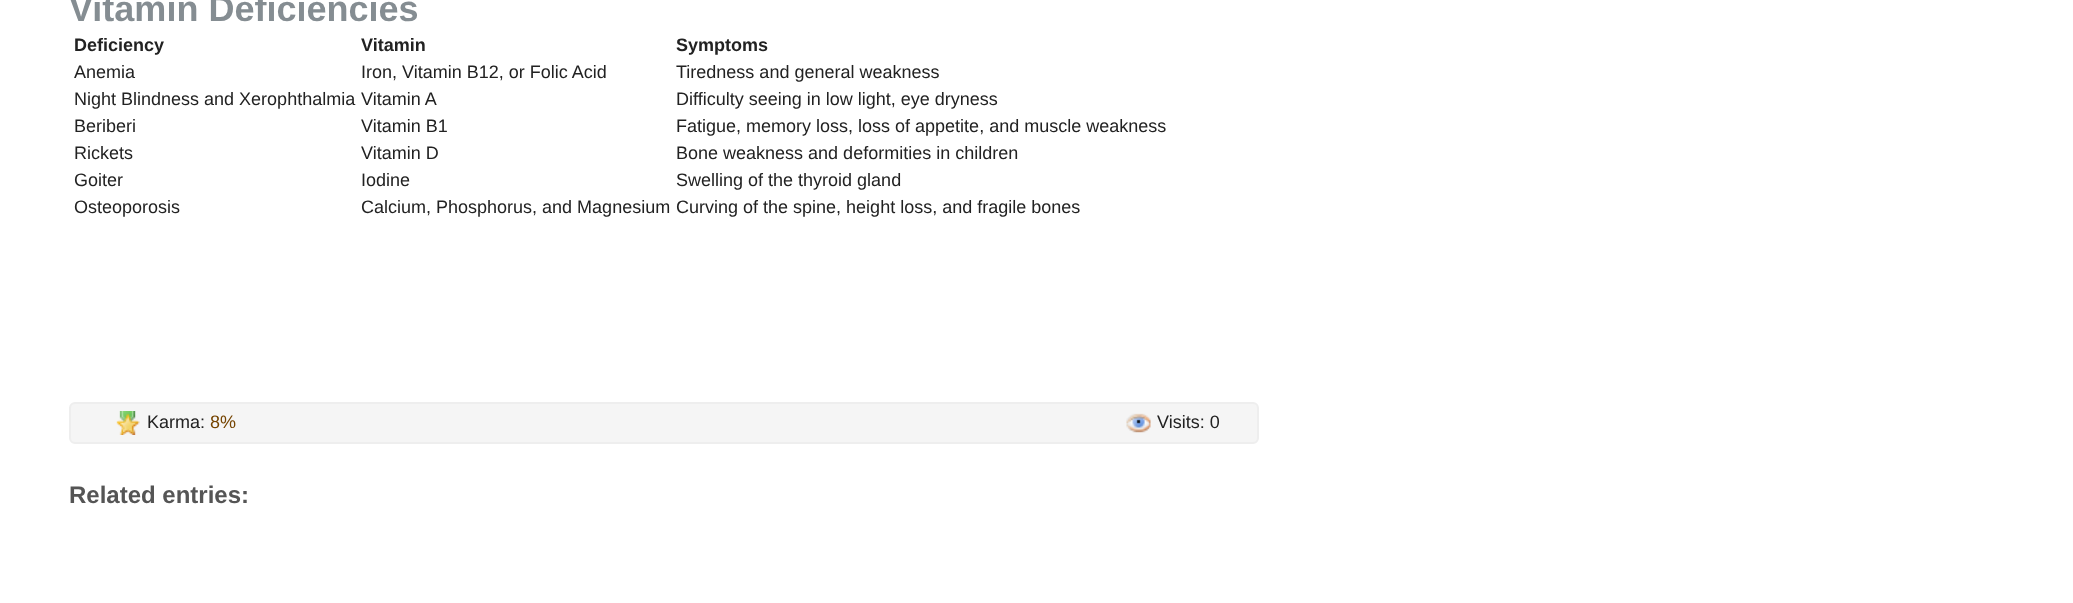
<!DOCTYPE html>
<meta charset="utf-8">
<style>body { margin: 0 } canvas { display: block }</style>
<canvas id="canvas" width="2073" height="603"></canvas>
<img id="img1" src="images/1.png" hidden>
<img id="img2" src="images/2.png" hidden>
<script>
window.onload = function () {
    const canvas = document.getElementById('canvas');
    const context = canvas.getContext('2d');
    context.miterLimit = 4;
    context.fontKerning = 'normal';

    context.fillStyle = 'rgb(255, 255, 255)';
    context.fillRect(0, 0, 2073, 603);
    context.fillStyle = 'rgb(245, 245, 245)';
    context.beginPath();
    context.roundRect(70, 403, 1188, 40, 5);
    context.fill();
    context.strokeStyle = 'rgb(238, 238, 238)';
    context.lineWidth = 2;
    context.stroke();
    context.drawImage(document.getElementById('img1'), 116, 411, 24, 24);
    context.drawImage(document.getElementById('img2'), 1126, 413, 25, 20);
    context.font = 'bold 36px Liberation Sans';
    context.fillStyle = 'rgb(133, 141, 146)';
    context.fillText('Vitamin Deficiencies', 69, 21);
    context.font = 'bold 18px Liberation Sans';
    context.fillStyle = 'rgb(34, 34, 34)';
    context.fillText('Deficiency', 74, 51);
    context.fillText('Vitamin', 361, 51);
    context.fillText('Symptoms', 676, 51);
    context.font = '18px Liberation Sans';
    context.fillText('Anemia', 74, 78);
    context.fillText('Iron, Vitamin B12, or Folic Acid', 361, 78);
    context.fillText('Tiredness and general weakness', 676, 78);
    context.fillText('Night Blindness and Xerophthalmia', 74, 105);
    context.fillText('Vitamin A', 361, 105);
    context.fillText('Difficulty seeing in low light, eye dryness', 676, 105);
    context.fillText('Beriberi', 74, 132);
    context.fillText('Vitamin B1', 361, 132);
    context.fillText('Fatigue, memory loss, loss of appetite, and muscle weakness', 676, 132);
    context.fillText('Rickets', 74, 159);
    context.fillText('Vitamin D', 361, 159);
    context.fillText('Bone weakness and deformities in children', 676, 159);
    context.fillText('Goiter', 74, 186);
    context.fillText('Iodine', 361, 186);
    context.fillText('Swelling of the thyroid gland', 676, 186);
    context.fillText('Osteoporosis', 74, 213);
    context.fillText('Calcium, Phosphorus, and Magnesium', 361, 213);
    context.fillText('Curving of the spine, height loss, and fragile bones', 676, 213);
    context.fillText('Karma:', 147, 428);
    context.fillStyle = 'rgb(117, 68, 0)';
    context.fillText('8%', 210, 428);
    context.fillStyle = 'rgb(34, 34, 34)';
    context.fillText('Visits: 0', 1157, 428);
    context.font = 'bold 24px Liberation Sans';
    context.fillStyle = 'rgb(85, 85, 85)';
    context.fillText('Related entries:', 69, 503);
};
</script>
